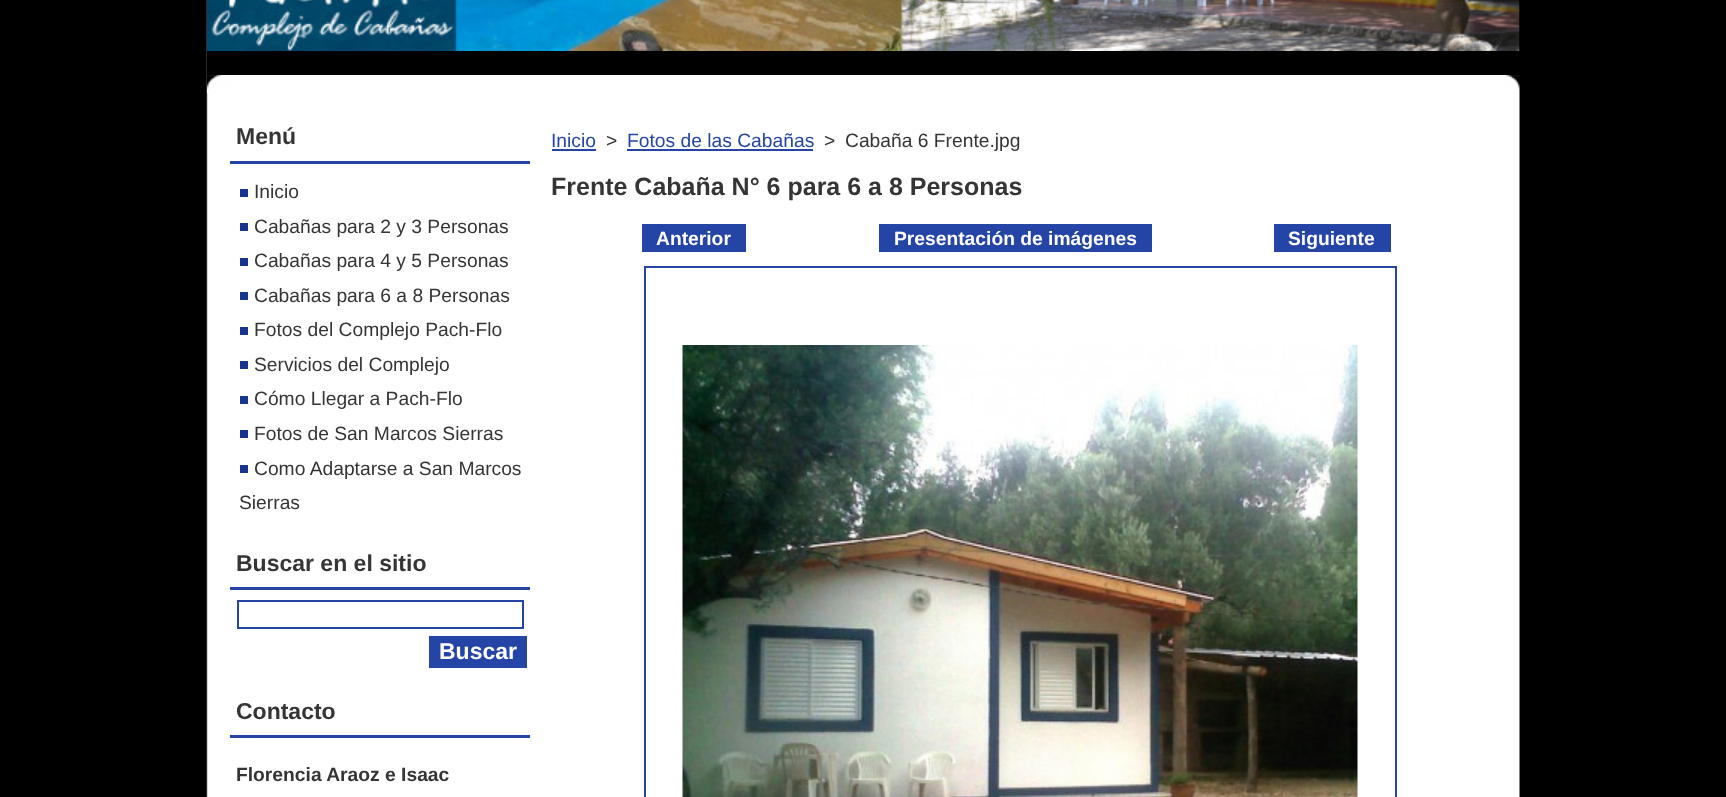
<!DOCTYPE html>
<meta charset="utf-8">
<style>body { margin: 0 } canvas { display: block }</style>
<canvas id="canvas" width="1726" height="797"></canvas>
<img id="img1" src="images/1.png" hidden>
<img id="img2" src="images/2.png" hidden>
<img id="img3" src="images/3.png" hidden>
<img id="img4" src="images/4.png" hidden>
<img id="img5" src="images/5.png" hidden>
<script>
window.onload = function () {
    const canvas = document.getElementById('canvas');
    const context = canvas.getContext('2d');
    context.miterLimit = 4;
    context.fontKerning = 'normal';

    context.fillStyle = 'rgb(0, 0, 0)';
    context.fillRect(0, 0, 1726, 797);
    context.drawImage(document.getElementById('img1'), 206, 0, 1314, 397);
    context.drawImage(document.getElementById('img2'), 206, 397, 1314, 400);
    context.fillRect(207, 0, 1313, 93);
    context.drawImage(document.getElementById('img3'), 207, 75, 1313, 18);
    context.drawImage(document.getElementById('img4'), 207, 0, 1313, 51);
    context.fillStyle = 'rgb(36, 69, 165)';
    context.fillRect(230, 161, 300, 3);
    context.fillStyle = 'rgb(20, 53, 146)';
    context.fillRect(240, 189, 8, 8);
    context.fillRect(240, 223, 8, 8);
    context.fillRect(240, 258, 8, 8);
    context.fillRect(240, 292, 8, 8);
    context.fillRect(240, 327, 8, 8);
    context.fillRect(240, 361, 8, 8);
    context.fillRect(240, 396, 8, 8);
    context.fillRect(240, 430, 8, 8);
    context.fillRect(240, 465, 8, 8);
    context.fillStyle = 'rgb(36, 69, 165)';
    context.fillRect(230, 587, 300, 3);
    context.strokeStyle = 'rgb(36, 69, 165)';
    context.lineWidth = 2;
    context.strokeRect(238, 601, 285, 27);
    context.fillRect(429, 636, 98, 32);
    context.fillRect(230, 735, 300, 3);
    context.fillRect(552, 149, 44, 2);
    context.fillRect(627, 149, 186, 2);
    context.fillRect(642, 224, 104, 28);
    context.fillRect(879, 224, 273, 28);
    context.fillRect(1274, 224, 117, 28);
    context.strokeRect(645, 267, 751, 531);
    context.drawImage(document.getElementById('img5'), 682, 345, 676, 452);
    context.font = 'bold 23px Liberation Sans';
    context.fillStyle = 'rgb(53, 53, 53)';
    context.fillText('Menú', 236, 144);
    context.font = '19.25px Liberation Sans';
    context.fillText('Inicio', 254, 198);
    context.fillText('Cabañas para 2 y 3 Personas', 254, 233);
    context.fillText('Cabañas para 4 y 5 Personas', 254, 267);
    context.fillText('Cabañas para 6 a 8 Personas', 254, 302);
    context.fillText('Fotos del Complejo Pach-Flo', 254, 336);
    context.fillText('Servicios del Complejo', 254, 371);
    context.fillText('Cómo Llegar a Pach-Flo', 254, 405);
    context.fillText('Fotos de San Marcos Sierras', 254, 440);
    context.fillText('Como Adaptarse a San Marcos', 254, 475);
    context.fillText('Sierras', 239, 509);
    context.font = 'bold 23px Liberation Sans';
    context.fillText('Buscar en el sitio', 236, 571);
    context.fillStyle = 'rgb(255, 255, 255)';
    context.fillText('Buscar', 439, 659);
    context.fillStyle = 'rgb(53, 53, 53)';
    context.fillText('Contacto', 236, 719);
    context.font = 'bold 19.25px Liberation Sans';
    context.fillText('Florencia Araoz e Isaac', 236, 781);
    context.font = '19.25px Liberation Sans';
    context.fillStyle = 'rgb(36, 69, 165)';
    context.fillText('Inicio', 551, 147);
    context.fillStyle = 'rgb(53, 53, 53)';
    context.fillText('>', 606, 147);
    context.fillStyle = 'rgb(36, 69, 165)';
    context.fillText('Fotos de las Cabañas', 627, 147);
    context.fillStyle = 'rgb(53, 53, 53)';
    context.fillText('>', 824, 147);
    context.fillText('Cabaña 6 Frente.jpg', 845, 147);
    context.font = 'bold 25px Liberation Sans';
    context.fillText('Frente Cabaña N° 6 para 6 a 8 Personas', 551, 195);
    context.font = 'bold 19.25px Liberation Sans';
    context.fillStyle = 'rgb(255, 255, 255)';
    context.fillText('Anterior', 656, 245);
    context.fillText('Presentación de imágenes', 894, 245);
    context.fillText('Siguiente', 1288, 245);
};
</script>
